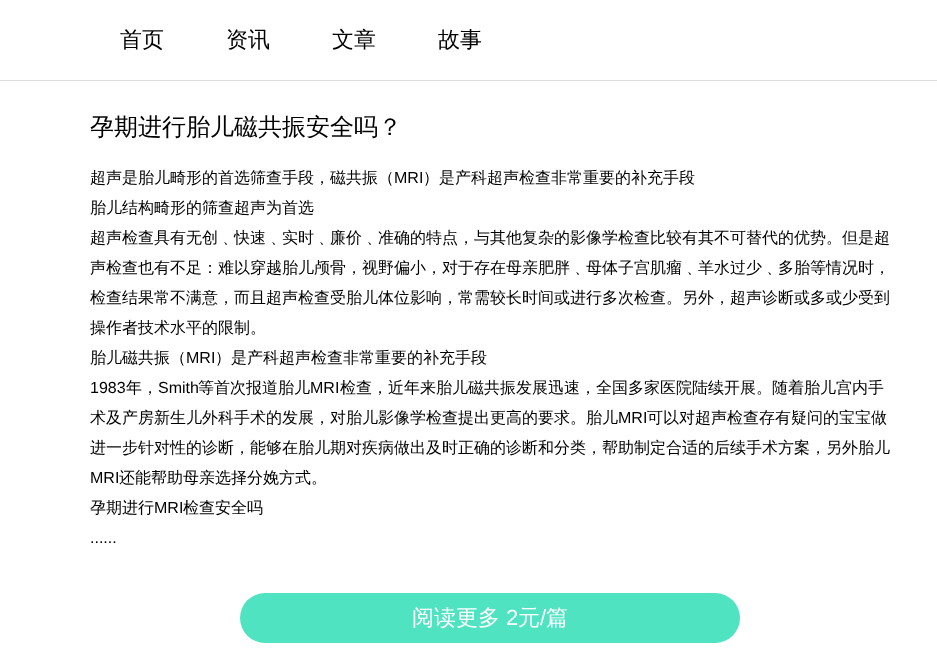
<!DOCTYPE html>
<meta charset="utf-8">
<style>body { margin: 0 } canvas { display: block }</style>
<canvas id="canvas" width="937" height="648"></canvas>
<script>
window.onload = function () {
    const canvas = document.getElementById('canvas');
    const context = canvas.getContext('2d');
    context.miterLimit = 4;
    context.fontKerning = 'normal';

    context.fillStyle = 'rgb(255, 255, 255)';
    context.fillRect(0, 0, 937, 648);
    context.fillStyle = 'rgb(219, 220, 221)';
    context.fillRect(0, 80, 937, 1);
    context.fillStyle = 'rgb(80, 227, 194)';
    context.beginPath();
    context.roundRect(240, 593, 500, 50, 25);
    context.fill();
    context.font = '500 22px WenQuanYi Zen Hei';
    context.fillStyle = 'rgb(0, 0, 0)';
    context.fillText('首页', 120, 47);
    context.fillText('资讯', 226, 47);
    context.fillText('文章', 332, 47);
    context.fillText('故事', 438, 47);
    context.font = '500 24px WenQuanYi Zen Hei';
    context.fillText('孕期进行胎儿磁共振安全吗？', 90, 135);
    context.font = '500 16px WenQuanYi Zen Hei';
    context.fillText('超声是胎儿畸形的首选筛查手段，磁共振（', 90, 183);
    context.font = '16px Liberation Sans';
    context.fillText('MRI', 394, 183);
    context.font = '500 16px WenQuanYi Zen Hei';
    context.fillText('）是产科超声检查非常重要的补充手段', 423, 183);
    context.fillText('胎儿结构畸形的筛查超声为首选', 90, 213);
    context.fillText('超声检查具有无创﹑快速﹑实时﹑廉价﹑准确的特点，与其他复杂的影像学检查比较有其不可替代的优势。但是超', 90, 243);
    context.fillText('声检查也有不足：难以穿越胎儿颅骨，视野偏小，对于存在母亲肥胖﹑母体子宫肌瘤﹑羊水过少﹑多胎等情况时，', 90, 273);
    context.fillText('检查结果常不满意，而且超声检查受胎儿体位影响，常需较长时间或进行多次检查。另外，超声诊断或多或少受到', 90, 303);
    context.fillText('操作者技术水平的限制。', 90, 333);
    context.fillText('胎儿磁共振（', 90, 363);
    context.font = '16px Liberation Sans';
    context.fillText('MRI', 186, 363);
    context.font = '500 16px WenQuanYi Zen Hei';
    context.fillText('）是产科超声检查非常重要的补充手段', 215, 363);
    context.font = '16px Liberation Sans';
    context.fillText('1983', 90, 393);
    context.font = '500 16px WenQuanYi Zen Hei';
    context.fillText('年，', 126, 393);
    context.font = '16px Liberation Sans';
    context.fillText('Smith', 158, 393);
    context.font = '500 16px WenQuanYi Zen Hei';
    context.fillText('等首次报道胎儿', 198, 393);
    context.font = '16px Liberation Sans';
    context.fillText('MRI', 310, 393);
    context.font = '500 16px WenQuanYi Zen Hei';
    context.fillText('检查，近年来胎儿磁共振发展迅速，全国多家医院陆续开展。随着胎儿宫内手', 340, 393);
    context.fillText('术及产房新生儿外科手术的发展，对胎儿影像学检查提出更高的要求。胎儿', 90, 423);
    context.font = '16px Liberation Sans';
    context.fillText('MRI', 618, 423);
    context.font = '500 16px WenQuanYi Zen Hei';
    context.fillText('可以对超声检查存有疑问的宝宝做', 647, 423);
    context.fillText('进一步针对性的诊断，能够在胎儿期对疾病做出及时正确的诊断和分类，帮助制定合适的后续手术方案，另外胎儿', 90, 453);
    context.font = '16px Liberation Sans';
    context.fillText('MRI', 90, 483);
    context.font = '500 16px WenQuanYi Zen Hei';
    context.fillText('还能帮助母亲选择分娩方式。', 119, 483);
    context.fillText('孕期进行', 90, 513);
    context.font = '16px Liberation Sans';
    context.fillText('MRI', 154, 513);
    context.font = '500 16px WenQuanYi Zen Hei';
    context.fillText('检查安全吗', 183, 513);
    context.font = '16px Liberation Sans';
    context.fillText('......', 90, 543);
    context.font = '500 22px WenQuanYi Zen Hei';
    context.fillStyle = 'rgb(255, 255, 255)';
    context.fillText('阅读更多', 412, 625);
    context.font = '22px Liberation Sans';
    context.fillText('2', 506, 625);
    context.font = '500 22px WenQuanYi Zen Hei';
    context.fillText('元', 518, 625);
    context.font = '22px Liberation Sans';
    context.fillText('/', 540, 625);
    context.font = '500 22px WenQuanYi Zen Hei';
    context.fillText('篇', 546, 625);
};
</script>
